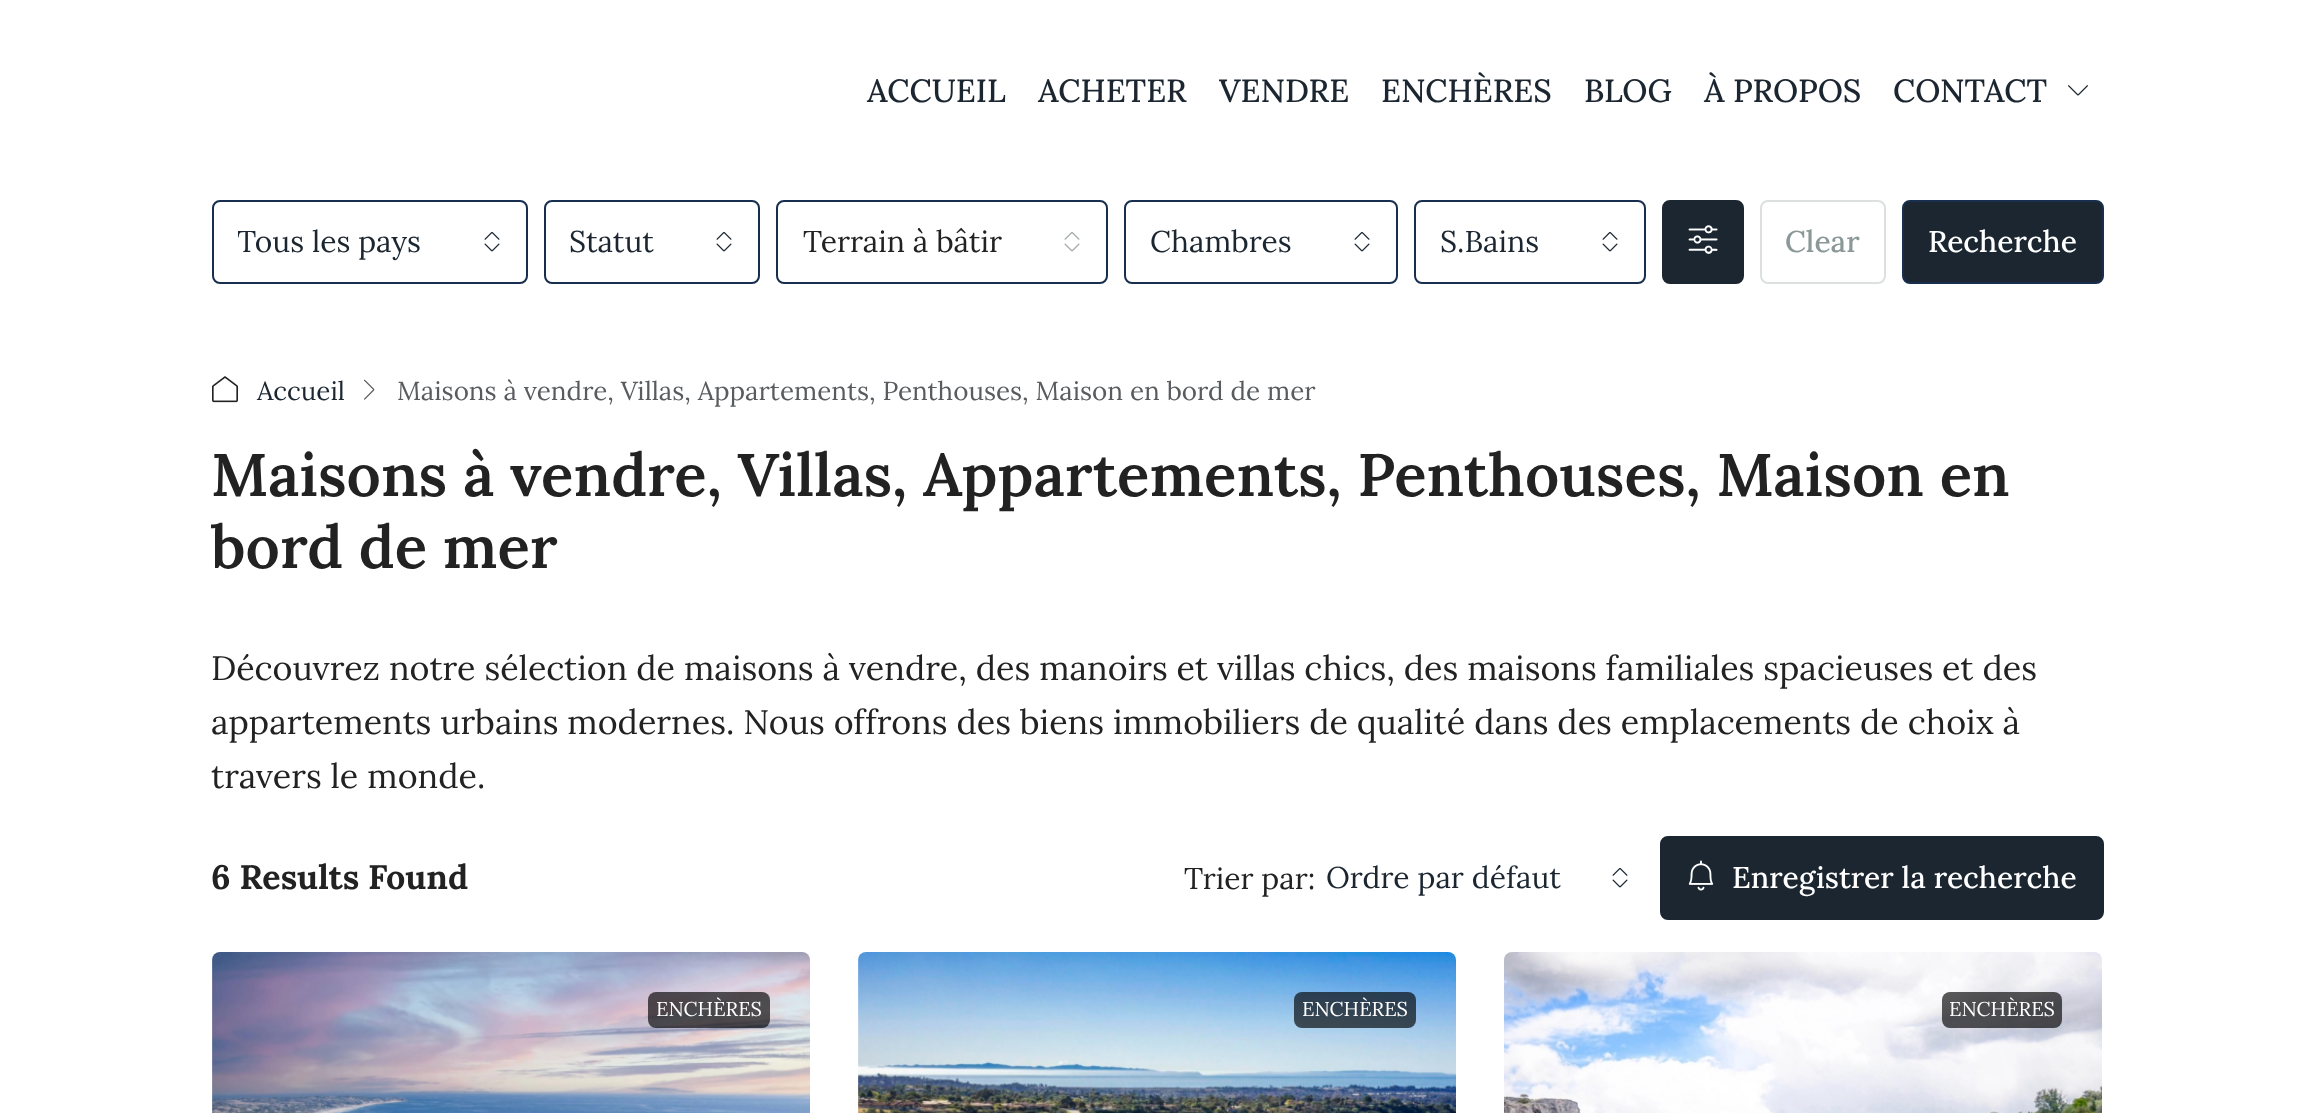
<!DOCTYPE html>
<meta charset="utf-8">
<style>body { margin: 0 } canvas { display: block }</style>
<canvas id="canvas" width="2314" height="1113"></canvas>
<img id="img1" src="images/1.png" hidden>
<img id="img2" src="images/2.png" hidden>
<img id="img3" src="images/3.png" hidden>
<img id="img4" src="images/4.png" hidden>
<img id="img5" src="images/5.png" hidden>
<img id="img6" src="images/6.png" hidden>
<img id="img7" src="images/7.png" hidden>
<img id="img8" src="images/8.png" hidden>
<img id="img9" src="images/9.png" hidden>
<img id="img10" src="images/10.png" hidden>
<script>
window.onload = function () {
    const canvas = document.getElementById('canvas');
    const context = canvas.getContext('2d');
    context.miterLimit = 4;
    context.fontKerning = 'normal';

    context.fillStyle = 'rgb(255, 255, 255)';
    context.fillRect(0, 0, 2314, 1113);
    context.drawImage(document.getElementById('img1'), 2068, 85, 20, 11);
    context.beginPath();
    context.roundRect(213, 201, 314, 82, 7);
    context.strokeStyle = 'rgb(23, 46, 79)';
    context.lineWidth = 2;
    context.stroke();
    context.drawImage(document.getElementById('img2'), 484, 232, 16, 20);
    context.beginPath();
    context.roundRect(545, 201, 214, 82, 7);
    context.stroke();
    context.drawImage(document.getElementById('img2'), 716, 232, 16, 20);
    context.beginPath();
    context.roundRect(777, 201, 330, 82, 7);
    context.stroke();
    context.drawImage(document.getElementById('img3'), 1064, 232, 16, 20);
    context.beginPath();
    context.roundRect(1125, 201, 272, 82, 7);
    context.stroke();
    context.drawImage(document.getElementById('img2'), 1354, 232, 16, 20);
    context.beginPath();
    context.roundRect(1415, 201, 230, 82, 7);
    context.stroke();
    context.drawImage(document.getElementById('img2'), 1602, 232, 16, 20);
    context.fillStyle = 'rgb(27, 38, 49)';
    context.beginPath();
    context.roundRect(1663, 201, 80, 82, 7);
    context.fill();
    context.strokeStyle = 'rgb(27, 38, 49)';
    context.stroke();
    context.drawImage(document.getElementById('img4'), 1688, 225, 30, 29);
    context.beginPath();
    context.roundRect(1761, 201, 124, 82, 7);
    context.strokeStyle = 'rgb(220, 224, 224)';
    context.stroke();
    context.beginPath();
    context.roundRect(1903, 201, 200, 82, 7);
    context.fill();
    context.strokeStyle = 'rgb(23, 46, 79)';
    context.stroke();
    context.drawImage(document.getElementById('img5'), 212, 376, 26, 27);
    context.drawImage(document.getElementById('img6'), 364, 379, 11, 21);
    context.drawImage(document.getElementById('img2'), 1612, 868, 16, 20);
    context.beginPath();
    context.roundRect(1661, 837, 442, 82, 7);
    context.fill();
    context.strokeStyle = 'rgb(27, 38, 49)';
    context.stroke();
    context.drawImage(document.getElementById('img7'), 1688, 860, 26, 31);
    context.drawImage(document.getElementById('img8'), 212, 952, 598, 161);
    context.fillStyle = 'rgba(0, 0, 0, 0.65)';
    context.beginPath();
    context.roundRect(648, 992, 122, 36, 8);
    context.fill();
    context.drawImage(document.getElementById('img9'), 858, 952, 598, 161);
    context.beginPath();
    context.roundRect(1294, 992, 122, 36, 8);
    context.fill();
    context.drawImage(document.getElementById('img10'), 1504, 952, 598, 161);
    context.beginPath();
    context.roundRect(1942, 992, 120, 36, 8);
    context.fill();
    context.font = '500 32px Lora';
    context.fillStyle = 'rgb(27, 38, 49)';
    context.fillText('ACCUEIL', 867, 102);
    context.fillText('ACHETER', 1038, 102);
    context.fillText('VENDRE', 1219, 102);
    context.fillText('ENCHÈRES', 1381, 102);
    context.fillText('BLOG', 1584, 102);
    context.fillText('À PROPOS', 1704, 102);
    context.fillText('CONTACT', 1893, 102);
    context.save();
    context.beginPath();
    context.rect(238, 202, 214, 80);
    context.clip();
    context.font = '30px Lora';
    context.fillText('Tous les pays', 237, 252);
    context.restore();
    context.font = '30px Lora';
    context.fillText('Statut', 569, 252);
    context.fillStyle = 'rgb(34, 34, 34)';
    context.fillText('Terrain à bâtir', 803, 252);
    context.fillStyle = 'rgb(27, 38, 49)';
    context.fillText('Chambres', 1150, 252);
    context.fillText('S.Bains', 1440, 252);
    context.font = '500 30px Lora';
    context.fillStyle = 'rgb(139, 152, 152)';
    context.fillText('Clear', 1785, 252);
    context.fillStyle = 'rgb(255, 255, 255)';
    context.fillText('Recherche', 1928, 252);
    context.font = '26px Lora';
    context.fillStyle = 'rgb(27, 38, 49)';
    context.fillText('Accueil', 257, 400);
    context.fillStyle = 'rgb(89, 92, 95)';
    context.fillText('Maisons à vendre, Villas, Appartements, Penthouses, Maison en bord de mer', 397, 400);
    context.font = '600 60px Lora';
    context.fillStyle = 'rgb(34, 34, 34)';
    context.fillText('Maisons à vendre, Villas, Appartements, Penthouses, Maison en', 211, 496);
    context.fillText('bord de mer', 211, 568);
    context.font = '34px Lora';
    context.fillText('Découvrez notre sélection de maisons à vendre, des manoirs et villas chics, des maisons familiales spacieuses et des', 211, 680);
    context.fillText('appartements urbains modernes. Nous offrons des biens immobiliers de qualité dans des emplacements de choix à', 211, 734);
    context.fillText('travers le monde.', 211, 788);
    context.font = 'bold 34px Lora';
    context.fillText('6 Results Found', 211, 889);
    context.font = '30px Lora';
    context.fillText('Trier par:', 1184, 889);
    context.fillStyle = 'rgb(27, 38, 49)';
    context.fillText('Ordre par défaut', 1326, 888);
    context.font = '500 30px Lora';
    context.fillStyle = 'rgb(255, 255, 255)';
    context.fillText('Enregistrer la recherche', 1732, 888);
    context.font = '20px Lora';
    context.fillText('ENCHÈRES', 656, 1016);
    context.fillText('ENCHÈRES', 1302, 1016);
    context.fillText('ENCHÈRES', 1949, 1016);
};
</script>
